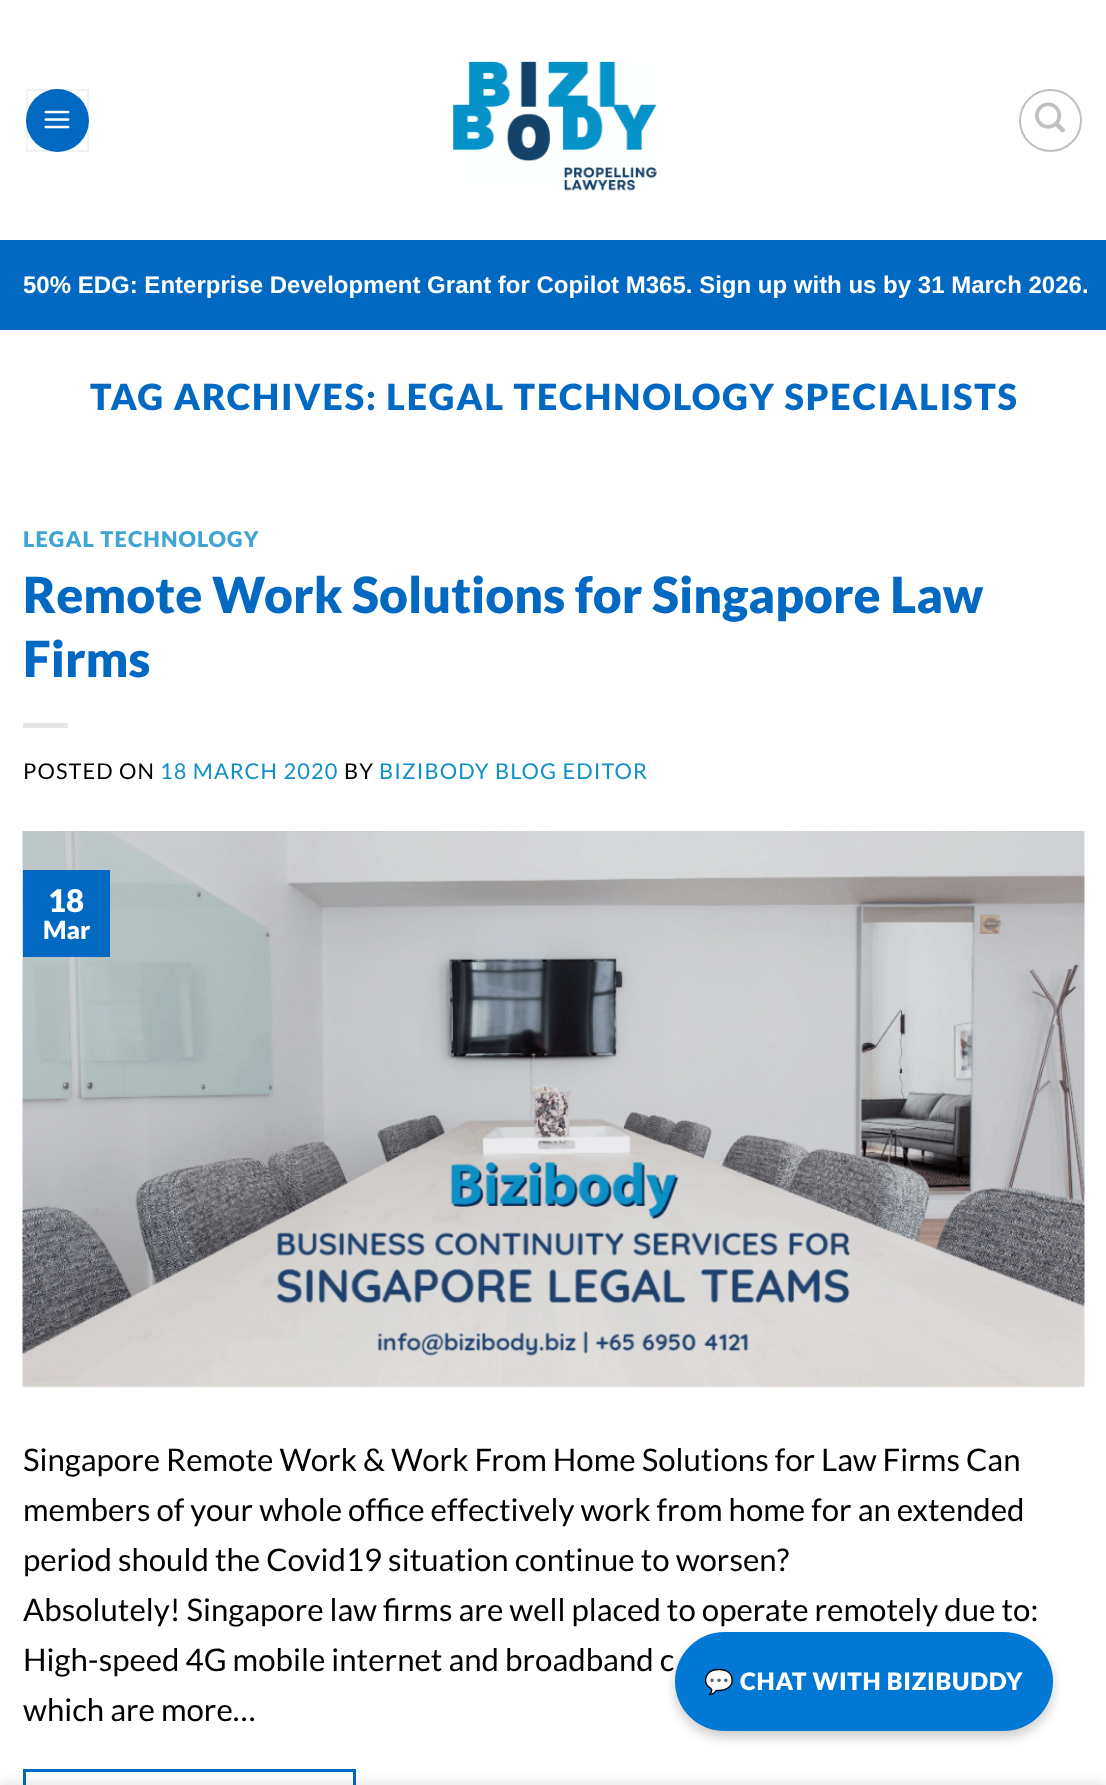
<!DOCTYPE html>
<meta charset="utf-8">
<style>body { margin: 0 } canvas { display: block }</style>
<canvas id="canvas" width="1106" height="1785"></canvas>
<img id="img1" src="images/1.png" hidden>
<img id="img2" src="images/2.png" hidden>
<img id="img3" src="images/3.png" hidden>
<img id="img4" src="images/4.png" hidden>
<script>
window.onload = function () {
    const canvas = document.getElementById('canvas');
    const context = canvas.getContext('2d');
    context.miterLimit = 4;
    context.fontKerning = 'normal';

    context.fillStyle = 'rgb(255, 255, 255)';
    context.fillRect(0, 0, 1106, 1785);
    context.fillStyle = 'rgb(2, 105, 195)';
    context.beginPath();
    context.arc(57.5, 120.5, 31.5, 0, 2 * Math.PI);
    context.fill();
    context.strokeStyle = 'rgba(0, 0, 0, 0.05)';
    context.lineWidth = 2;
    context.strokeRect(27, 90, 61, 61);
    context.drawImage(document.getElementById('img1'), 44, 110, 26, 19);
    context.drawImage(document.getElementById('img2'), 453, 61, 204, 130);
    context.beginPath();
    context.arc(1050.5, 120.5, 30.5, 0, 2 * Math.PI);
    context.strokeStyle = 'rgb(192, 192, 192)';
    context.stroke();
    context.drawImage(document.getElementById('img3'), 1035, 102, 30, 31);
    context.fillRect(0, 240, 1106, 90);
    context.fillStyle = 'rgb(230, 230, 230)';
    context.fillRect(23, 723, 45, 5);
    context.drawImage(document.getElementById('img4'), 22, 831, 1063, 557);
    context.fillStyle = 'rgb(2, 105, 195)';
    context.fillRect(23, 870, 87, 87);
    context.strokeStyle = 'rgb(2, 105, 195)';
    context.lineWidth = 3;
    context.strokeRect(24.5, 1770.5, 330, 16);
    context.fillStyle = 'rgba(0, 0, 0, 0.2)';
    context.filter = 'blur(6px)';
    context.beginPath();
    context.roundRect(675, 1638, 378, 99, 49.5);
    context.fill();
    context.filter = 'none';
    context.fillStyle = 'rgb(0, 120, 212)';
    context.beginPath();
    context.roundRect(675, 1632, 378, 99, 49.5);
    context.fill();
    context.fillStyle = 'rgba(0, 0, 0, 0.14)';
    context.filter = 'blur(7px)';
    context.beginPath();
    context.rect(0, 1785, 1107, 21);
    context.fill();
    context.filter = 'none';
    context.font = 'bold 24px Liberation Sans';
    context.fillStyle = 'rgb(255, 255, 255)';
    context.fillText('50% EDG: Enterprise Development Grant for Copilot M365. Sign up with us by 31 March 2026.', 23, 293);
    context.letterSpacing = '1.8px';
    context.font = '900 35.9px Lato';
    context.fillStyle = 'rgb(2, 105, 195)';
    context.fillText('TAG ARCHIVES: LEGAL TECHNOLOGY SPECIALISTS', 90, 410);
    context.letterSpacing = '1.1px';
    context.font = '900 21.8px Lato';
    context.fillStyle = 'rgb(63, 166, 210)';
    context.fillText('LEGAL TECHNOLOGY', 23, 547);
    context.letterSpacing = '0px';
    context.font = '900 49.9px Lato';
    context.fillStyle = 'rgb(2, 105, 195)';
    context.fillText('Remote Work Solutions for Singapore Law', 23, 613);
    context.fillText('Firms', 23, 677);
    context.letterSpacing = '1.1px';
    context.font = '21.8px Lato';
    context.fillStyle = 'rgb(0, 0, 0)';
    context.fillText('POSTED ON', 23, 779);
    context.fillStyle = 'rgb(15, 144, 199)';
    context.fillText('18 MARCH 2020', 160, 779);
    context.fillStyle = 'rgb(0, 0, 0)';
    context.fillText('BY', 344, 779);
    context.fillStyle = 'rgb(15, 144, 199)';
    context.fillText('BIZIBODY BLOG EDITOR', 379, 779);
    context.letterSpacing = '0px';
    context.font = '900 31.2px Lato';
    context.fillStyle = 'rgb(255, 255, 255)';
    context.fillText('18', 48, 912);
    context.font = '900 25px Lato';
    context.fillText('Mar', 43, 939);
    context.font = '31.2px Lato';
    context.fillStyle = 'rgb(0, 0, 0)';
    context.fillText('Singapore Remote Work & Work From Home Solutions for Law Firms Can', 23, 1471);
    context.fillText('members of your whole office effectively work from home for an extended', 23, 1521);
    context.fillText('period should the Covid19 situation continue to worsen?', 23, 1571);
    context.fillText('Absolutely! Singapore law firms are well placed to operate remotely due to:', 23, 1621);
    context.fillText('High-speed 4G mobile internet and broadband c', 23, 1671);
    context.fillText('which are more…', 23, 1721);
    context.letterSpacing = '0.75px';
    context.font = 'bold 24px Noto Color Emoji';
    context.fillStyle = 'rgb(255, 255, 255)';
    context.fillText('💬', 704, 1690);
    context.font = '900 24px Lato';
    context.fillText('CHAT WITH BIZIBUDDY', 740, 1690);
};
</script>
